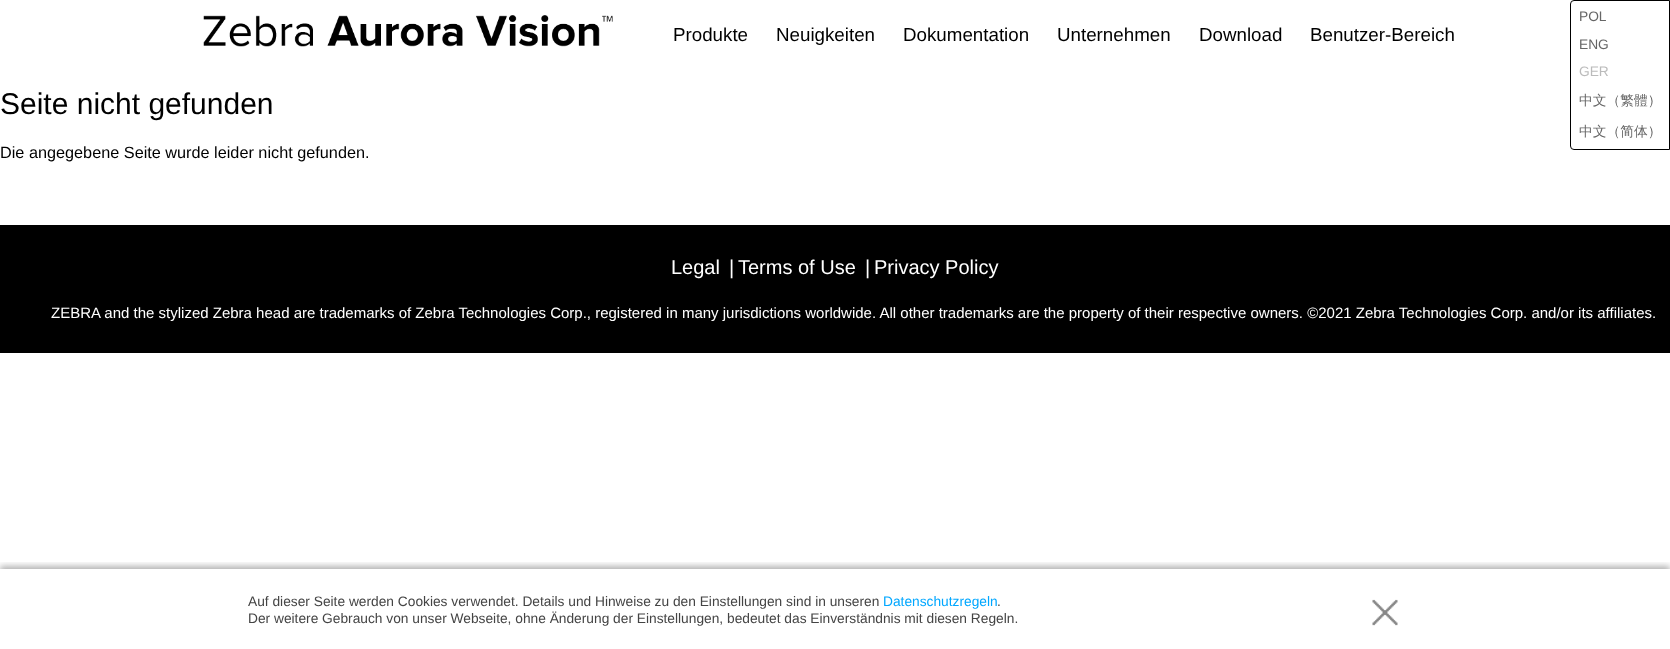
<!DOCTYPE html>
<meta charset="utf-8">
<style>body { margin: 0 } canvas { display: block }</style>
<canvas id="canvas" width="1670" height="649"></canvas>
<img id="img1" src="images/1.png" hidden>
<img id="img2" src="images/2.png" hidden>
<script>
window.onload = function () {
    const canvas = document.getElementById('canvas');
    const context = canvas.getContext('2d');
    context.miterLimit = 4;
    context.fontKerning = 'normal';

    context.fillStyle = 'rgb(255, 255, 255)';
    context.fillRect(0, 0, 1670, 649);
    context.drawImage(document.getElementById('img1'), 203, 15, 410, 32);
    context.beginPath();
    context.roundRect(1570.5, 0.5, 99, 149, [3.5, 0, 0, 3.5]);
    context.strokeStyle = 'rgb(0, 0, 0)';
    context.stroke();
    context.fillStyle = 'rgb(0, 0, 0)';
    context.fillRect(0, 225, 1670, 128);
    context.save();
    context.beginPath();
    context.rect(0, 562, 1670, 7);
    context.clip();
    context.fillStyle = 'rgba(0, 0, 0, 0.3)';
    context.filter = 'blur(3px)';
    context.beginPath();
    context.rect(0, 566, 1670, 82);
    context.fill();
    context.filter = 'none';
    context.restore();
    context.drawImage(document.getElementById('img2'), 1372, 599, 26, 27);
    context.font = '30px Liberation Sans';
    context.fillText('Seite nicht gefunden', 0, 114);
    context.font = '18.75px Liberation Sans';
    context.fillText('Produkte', 673, 41);
    context.fillText('Neuigkeiten', 776, 41);
    context.fillText('Dokumentation', 903, 41);
    context.fillText('Unternehmen', 1057, 41);
    context.fillText('Download', 1199, 41);
    context.fillText('Benutzer-Bereich', 1310, 41);
    context.font = '13.75px Liberation Sans';
    context.fillStyle = 'rgb(102, 102, 102)';
    context.fillText('POL', 1579, 21);
    context.fillText('ENG', 1579, 49);
    context.fillStyle = 'rgb(187, 187, 187)';
    context.fillText('GER', 1579, 76);
    context.font = '500 13.75px WenQuanYi Zen Hei';
    context.fillStyle = 'rgb(102, 102, 102)';
    context.fillText('中文（繁體）', 1579, 105);
    context.fillText('中文（简体）', 1579, 136);
    context.font = '16.25px Liberation Sans';
    context.fillStyle = 'rgb(0, 0, 0)';
    context.fillText('Die angegebene Seite wurde leider nicht gefunden.', 0, 158);
    context.font = '20px Liberation Sans';
    context.fillStyle = 'rgb(255, 255, 255)';
    context.fillText('Legal', 671, 274);
    context.fillText('|', 729, 274);
    context.fillText('Terms of Use', 738, 274);
    context.fillText('|', 865, 274);
    context.fillText('Privacy Policy', 874, 274);
    context.font = '15px Liberation Sans';
    context.fillText('ZEBRA and the stylized Zebra head are trademarks of Zebra Technologies Corp., registered in many jurisdictions worldwide. All other trademarks are the property of their respective owners. ©2021 Zebra Technologies Corp. and/or its affiliates.', 51, 318);
    context.font = '13.75px Liberation Sans';
    context.fillStyle = 'rgb(68, 68, 68)';
    context.fillText('Auf dieser Seite werden Cookies verwendet. Details und Hinweise zu den Einstellungen sind in unseren', 248, 606);
    context.fillStyle = 'rgb(0, 167, 255)';
    context.fillText('Datenschutzregeln', 883, 606);
    context.fillStyle = 'rgb(68, 68, 68)';
    context.fillText('.', 997, 606);
    context.fillText('Der weitere Gebrauch von unser Webseite, ohne Änderung der Einstellungen, bedeutet das Einverständnis mit diesen Regeln.', 248, 623);
};
</script>
